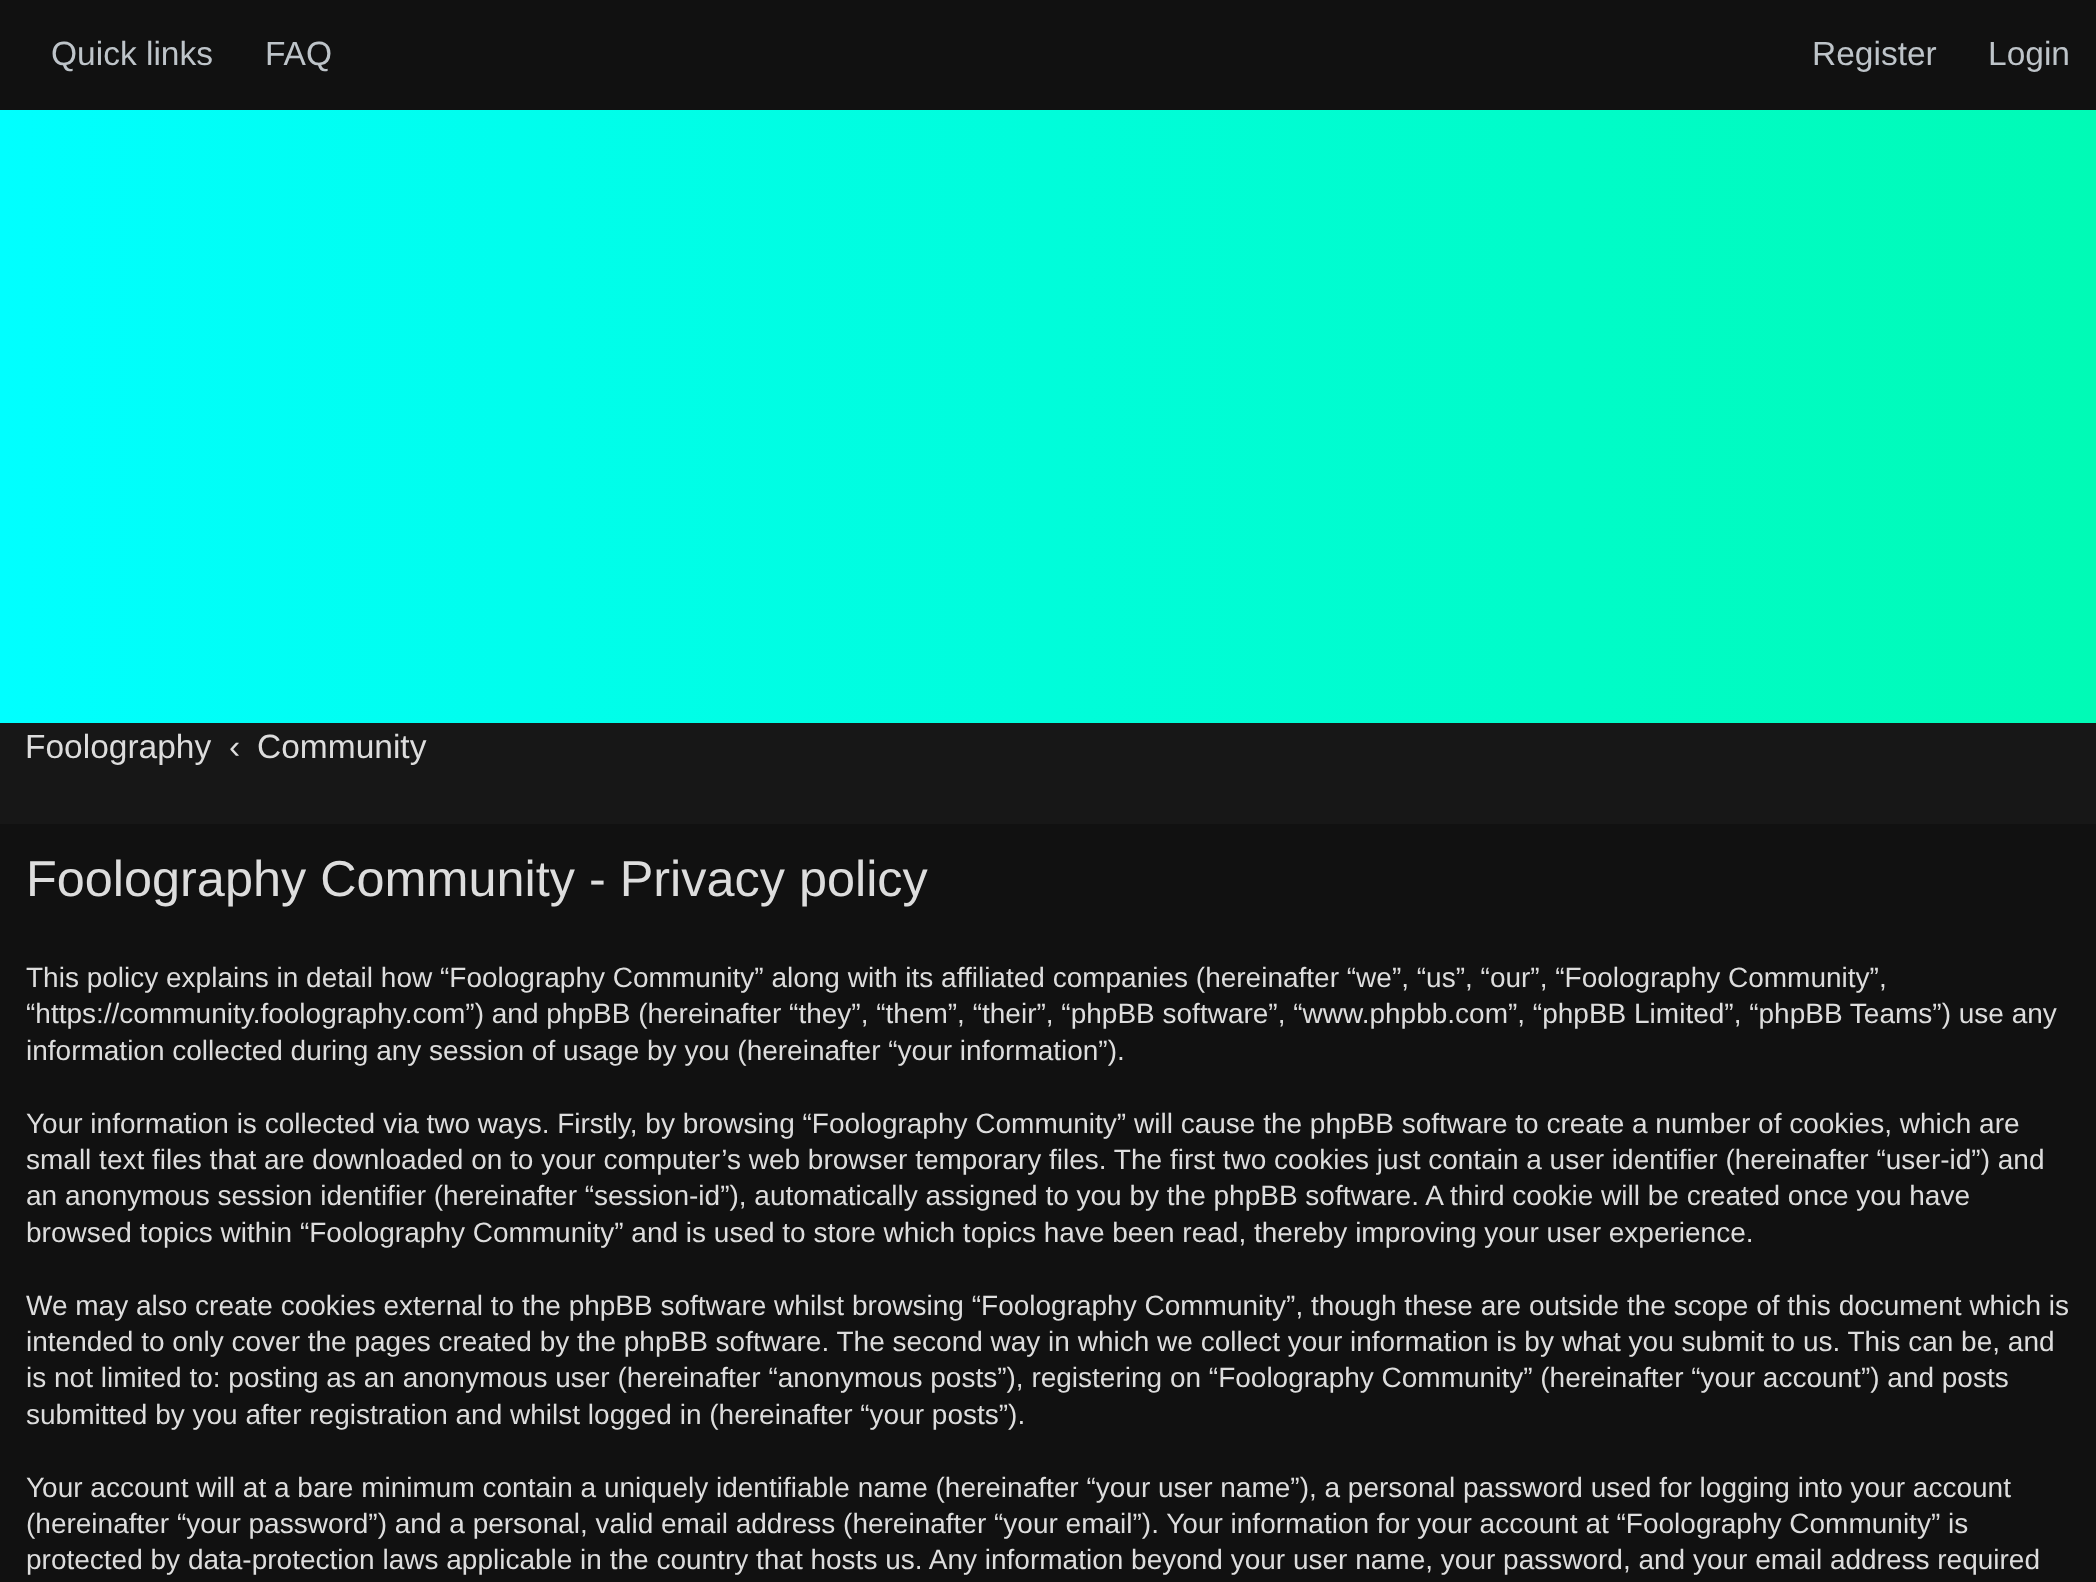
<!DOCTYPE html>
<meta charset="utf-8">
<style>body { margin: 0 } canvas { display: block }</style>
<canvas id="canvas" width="2096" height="1582"></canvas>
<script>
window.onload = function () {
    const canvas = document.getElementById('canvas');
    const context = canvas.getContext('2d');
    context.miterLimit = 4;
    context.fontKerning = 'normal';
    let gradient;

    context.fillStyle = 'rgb(17, 17, 17)';
    context.fillRect(0, 0, 2096, 1582);
    gradient = context.createLinearGradient(0, 417, 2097, 416);
    gradient.addColorStop(0, 'rgb(0, 255, 255)');
    gradient.addColorStop(1, 'rgb(0, 251, 182)');
    context.fillStyle = gradient;
    context.fillRect(0, 110, 2096, 613);
    context.fillStyle = 'rgb(23, 23, 23)';
    context.fillRect(0, 723, 2096, 101);
    context.font = '33.5px Liberation Sans';
    context.fillStyle = 'rgb(190, 196, 201)';
    context.fillText('Quick links', 51, 65);
    context.fillText('FAQ', 265, 65);
    context.fillText('Register', 1812, 65);
    context.fillText('Login', 1988, 65);
    context.fillStyle = 'rgb(221, 221, 221)';
    context.fillText('Foolography', 25, 758);
    context.fillText('‹', 229, 758);
    context.fillText('Community', 257, 758);
    context.font = '50.4px Liberation Sans';
    context.fillText('Foolography Community - Privacy policy', 26, 896);
    context.font = '28px Liberation Sans';
    context.fillText('This policy explains in detail how “Foolography Community” along with its affiliated companies (hereinafter “we”, “us”, “our”, “Foolography Community”,', 26, 987);
    context.fillText('“https://community.foolography.com”) and phpBB (hereinafter “they”, “them”, “their”, “phpBB software”, “www.phpbb.com”, “phpBB Limited”, “phpBB Teams”) use any', 26, 1023);
    context.fillText('information collected during any session of usage by you (hereinafter “your information”).', 26, 1060);
    context.fillText('Your information is collected via two ways. Firstly, by browsing “Foolography Community” will cause the phpBB software to create a number of cookies, which are', 26, 1133);
    context.fillText('small text files that are downloaded on to your computer’s web browser temporary files. The first two cookies just contain a user identifier (hereinafter “user-id”) and', 26, 1169);
    context.fillText('an anonymous session identifier (hereinafter “session-id”), automatically assigned to you by the phpBB software. A third cookie will be created once you have', 26, 1205);
    context.fillText('browsed topics within “Foolography Community” and is used to store which topics have been read, thereby improving your user experience.', 26, 1242);
    context.fillText('We may also create cookies external to the phpBB software whilst browsing “Foolography Community”, though these are outside the scope of this document which is', 26, 1315);
    context.fillText('intended to only cover the pages created by the phpBB software. The second way in which we collect your information is by what you submit to us. This can be, and', 26, 1351);
    context.fillText('is not limited to: posting as an anonymous user (hereinafter “anonymous posts”), registering on “Foolography Community” (hereinafter “your account”) and posts', 26, 1387);
    context.fillText('submitted by you after registration and whilst logged in (hereinafter “your posts”).', 26, 1424);
    context.fillText('Your account will at a bare minimum contain a uniquely identifiable name (hereinafter “your user name”), a personal password used for logging into your account', 26, 1497);
    context.fillText('(hereinafter “your password”) and a personal, valid email address (hereinafter “your email”). Your information for your account at “Foolography Community” is', 26, 1533);
    context.fillText('protected by data-protection laws applicable in the country that hosts us. Any information beyond your user name, your password, and your email address required', 26, 1569);
};
</script>
